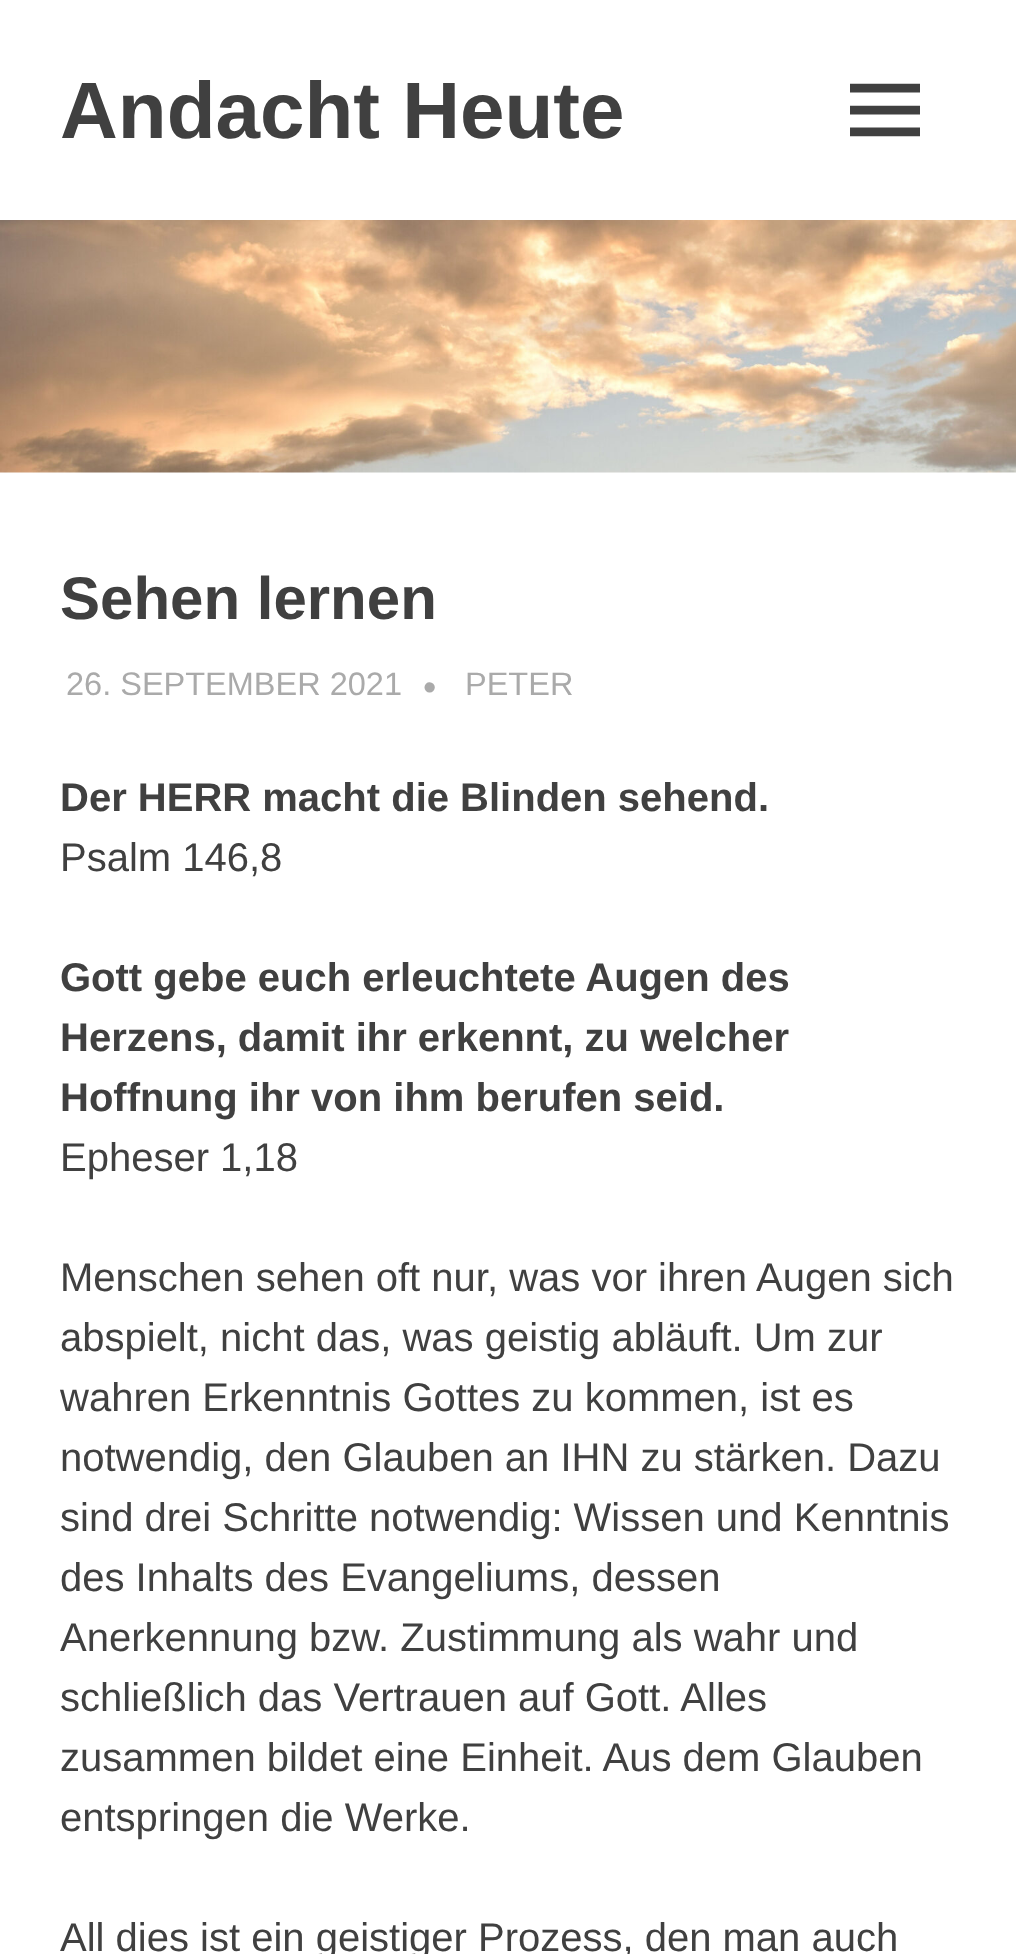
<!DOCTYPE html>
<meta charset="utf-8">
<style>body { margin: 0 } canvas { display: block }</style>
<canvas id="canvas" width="1016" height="1954"></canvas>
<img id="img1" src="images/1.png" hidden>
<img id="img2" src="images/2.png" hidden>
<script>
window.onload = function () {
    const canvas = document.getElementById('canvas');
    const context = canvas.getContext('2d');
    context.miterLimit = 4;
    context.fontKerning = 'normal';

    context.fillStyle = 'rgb(255, 255, 255)';
    context.fillRect(0, 0, 1016, 1954);
    context.drawImage(document.getElementById('img1'), 850, 83, 70, 54);
    context.drawImage(document.getElementById('img2'), 0, 220, 1016, 253);
    context.font = 'bold 80px Liberation Sans';
    context.fillStyle = 'rgb(64, 64, 64)';
    context.fillText('Andacht Heute', 60, 138);
    context.font = 'bold 60px Liberation Sans';
    context.fillText('Sehen lernen', 60, 619);
    context.font = '32.5px Liberation Sans';
    context.fillStyle = 'rgb(170, 170, 170)';
    context.fillText('26. SEPTEMBER 2021', 66, 695);
    context.font = '38px Liberation Sans';
    context.fillText('•', 423, 700);
    context.font = '32.5px Liberation Sans';
    context.fillText('PETER', 465, 695);
    context.font = 'bold 40px Liberation Sans';
    context.fillStyle = 'rgb(64, 64, 64)';
    context.fillText('Der HERR macht die Blinden sehend.', 60, 811);
    context.font = '40px Liberation Sans';
    context.fillText('Psalm 146,8', 60, 871);
    context.font = 'bold 40px Liberation Sans';
    context.fillText('Gott gebe euch erleuchtete Augen des', 60, 991);
    context.fillText('Herzens, damit ihr erkennt, zu welcher', 60, 1051);
    context.fillText('Hoffnung ihr von ihm berufen seid.', 60, 1111);
    context.font = '40px Liberation Sans';
    context.fillText('Epheser 1,18', 60, 1171);
    context.fillText('Menschen sehen oft nur, was vor ihren Augen sich', 60, 1291);
    context.fillText('abspielt, nicht das, was geistig abläuft. Um zur', 60, 1351);
    context.fillText('wahren Erkenntnis Gottes zu kommen, ist es', 60, 1411);
    context.fillText('notwendig, den Glauben an IHN zu stärken. Dazu', 60, 1471);
    context.fillText('sind drei Schritte notwendig: Wissen und Kenntnis', 60, 1531);
    context.fillText('des Inhalts des Evangeliums, dessen', 60, 1591);
    context.fillText('Anerkennung bzw. Zustimmung als wahr und', 60, 1651);
    context.fillText('schließlich das Vertrauen auf Gott. Alles', 60, 1711);
    context.fillText('zusammen bildet eine Einheit. Aus dem Glauben', 60, 1771);
    context.fillText('entspringen die Werke.', 60, 1831);
    context.fillText('All dies ist ein geistiger Prozess, den man auch', 60, 1951);
};
</script>
